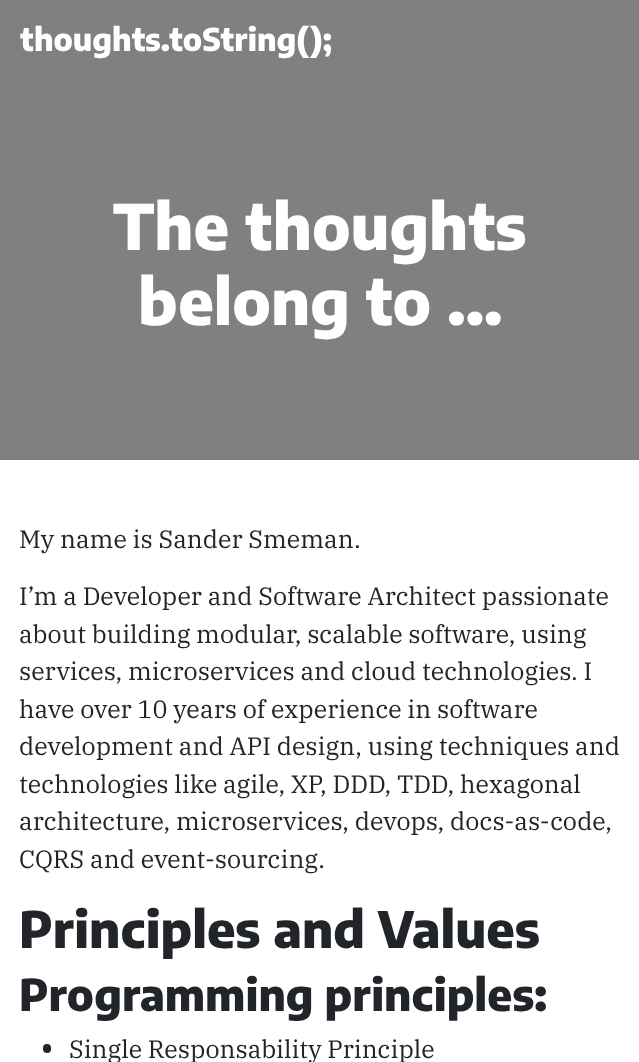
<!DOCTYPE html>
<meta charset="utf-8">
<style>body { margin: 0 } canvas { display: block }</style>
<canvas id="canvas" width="639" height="1062"></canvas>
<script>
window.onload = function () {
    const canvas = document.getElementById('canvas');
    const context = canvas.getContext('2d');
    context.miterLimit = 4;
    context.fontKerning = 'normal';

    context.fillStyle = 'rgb(255, 255, 255)';
    context.fillRect(0, 0, 639, 1062);
    context.fillStyle = 'rgb(128, 128, 128)';
    context.fillRect(0, 0, 639, 460);
    context.fillStyle = 'rgb(33, 37, 41)';
    context.beginPath();
    context.roundRect(43, 1044, 8, 9, 4);
    context.fill();
    context.font = '800 31.25px Encode Sans Condensed';
    context.fillStyle = 'rgb(255, 255, 255)';
    context.fillText('thoughts.toString();', 20, 51);
    context.font = '800 62.5px Encode Sans Condensed';
    context.fillText('The thoughts', 113, 250);
    context.fillText('belong to ...', 138, 325);
    context.font = '25px IBM Plex Serif';
    context.fillStyle = 'rgb(33, 37, 41)';
    context.fillText('My name is Sander Smeman.', 19, 548);
    context.fillText('I’m a Developer and Software Architect passionate', 19, 605);
    context.fillText('about building modular, scalable software, using', 19, 643);
    context.fillText('services, microservices and cloud technologies. I', 19, 680);
    context.fillText('have over 10 years of experience in software', 19, 718);
    context.fillText('development and API design, using techniques and', 19, 755);
    context.fillText('technologies like agile, XP, DDD, TDD, hexagonal', 19, 793);
    context.fillText('architecture, microservices, devops, docs-as-code,', 19, 830);
    context.fillText('CQRS and event-sourcing.', 19, 868);
    context.font = '800 50px Encode Sans Condensed';
    context.fillText('Principles and Values', 19, 948);
    context.font = '800 43.75px Encode Sans Condensed';
    context.fillText('Programming principles:', 19, 1011);
    context.font = '25px IBM Plex Serif';
    context.fillText('Single Responsability Principle', 69, 1058);
};
</script>
